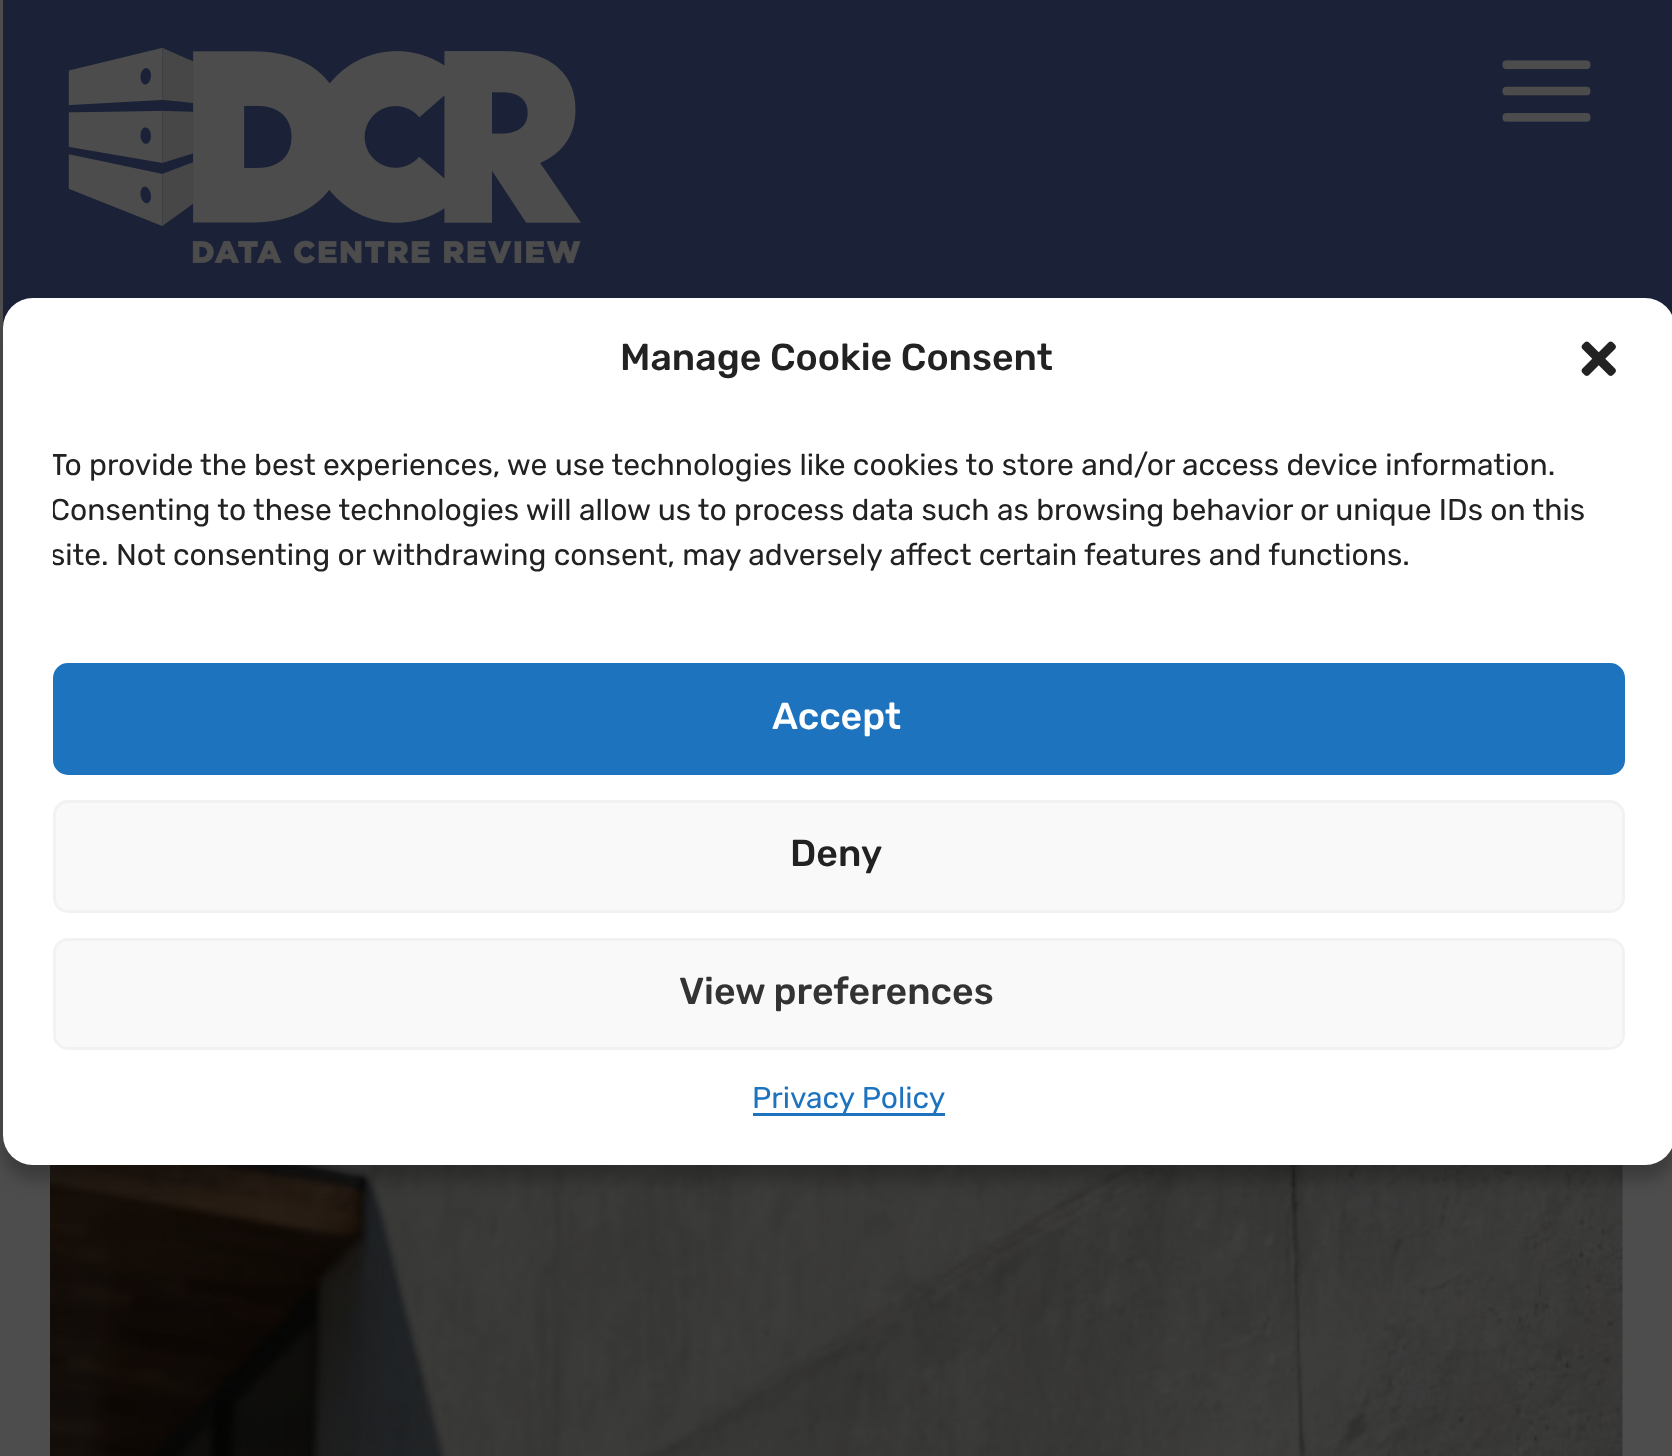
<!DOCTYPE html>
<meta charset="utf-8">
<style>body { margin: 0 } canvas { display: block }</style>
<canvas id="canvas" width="1672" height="1456"></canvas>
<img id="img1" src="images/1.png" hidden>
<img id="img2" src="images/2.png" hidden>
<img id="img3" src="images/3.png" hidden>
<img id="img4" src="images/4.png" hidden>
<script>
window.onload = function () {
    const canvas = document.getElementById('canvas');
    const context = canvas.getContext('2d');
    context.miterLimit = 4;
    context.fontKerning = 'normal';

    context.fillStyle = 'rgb(77, 77, 77)';
    context.fillRect(0, 0, 1672, 1456);
    context.fillStyle = 'rgb(27, 33, 54)';
    context.fillRect(3, 0, 1669, 328);
    context.drawImage(document.getElementById('img1'), 68, 47, 513, 217);
    context.drawImage(document.getElementById('img2'), 1502, 60, 89, 62);
    context.drawImage(document.getElementById('img3'), 50, 1165, 1573, 291);
    context.save();
    context.beginPath();
    context.moveTo(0, 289);
    context.lineTo(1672, 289);
    context.lineTo(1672, 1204);
    context.lineTo(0, 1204);
    context.closePath();
    context.moveTo(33, 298);
    context.lineTo(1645, 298);
    context.bezierCurveTo(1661.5, 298, 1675, 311.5, 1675, 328);
    context.lineTo(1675, 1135);
    context.bezierCurveTo(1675, 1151.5, 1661.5, 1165, 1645, 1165);
    context.lineTo(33, 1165);
    context.bezierCurveTo(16.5, 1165, 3, 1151.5, 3, 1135);
    context.lineTo(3, 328);
    context.bezierCurveTo(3, 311.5, 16.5, 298, 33, 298);
    context.closePath();
    context.clip('evenodd');
    context.fillStyle = 'rgba(0, 0, 0, 0.23)';
    context.filter = 'blur(7.5px)';
    context.beginPath();
    context.roundRect(3, 313, 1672, 867, 30);
    context.fill();
    context.filter = 'none';
    context.restore();
    context.fillStyle = 'rgb(255, 255, 255)';
    context.beginPath();
    context.roundRect(3, 298, 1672, 867, 30);
    context.fill();
    context.drawImage(document.getElementById('img4'), 1581, 341, 35, 35);
    context.fillStyle = 'rgb(30, 115, 190)';
    context.beginPath();
    context.roundRect(54.5, 664.5, 1569, 109, 13.5);
    context.fill();
    context.strokeStyle = 'rgb(30, 115, 190)';
    context.lineWidth = 3;
    context.stroke();
    context.fillStyle = 'rgb(249, 249, 249)';
    context.beginPath();
    context.roundRect(54.5, 801.5, 1569, 110, 13.5);
    context.fill();
    context.strokeStyle = 'rgb(242, 242, 242)';
    context.stroke();
    context.beginPath();
    context.roundRect(54.5, 939.5, 1569, 109, 13.5);
    context.fill();
    context.stroke();
    context.fillStyle = 'rgb(30, 115, 190)';
    context.fillRect(753, 1113, 192, 3);
    context.font = '500 37.5px Rubik';
    context.fillStyle = 'rgb(34, 34, 34)';
    context.fillText('Manage Cookie Consent', 620, 370);
    context.save();
    context.beginPath();
    context.rect(53, 445, 1572, 148);
    context.clip();
    context.font = '30px Rubik';
    context.fillText('To provide the best experiences, we use technologies like cookies to store and/or access device information.', 50, 475);
    context.fillText('Consenting to these technologies will allow us to process data such as browsing behavior or unique IDs on this', 50, 520);
    context.fillText('site. Not consenting or withdrawing consent, may adversely affect certain features and functions.', 50, 565);
    context.restore();
    context.fillStyle = 'rgb(255, 255, 255)';
    context.fillText('Accept', 772, 729);
    context.fillStyle = 'rgb(34, 34, 34)';
    context.fillText('Deny', 790, 866);
    context.fillStyle = 'rgb(51, 51, 51)';
    context.fillText('View preferences', 679, 1004);
    context.font = '30px Rubik';
    context.fillStyle = 'rgb(30, 115, 190)';
    context.fillText('Privacy Policy', 752, 1108);
};
</script>
